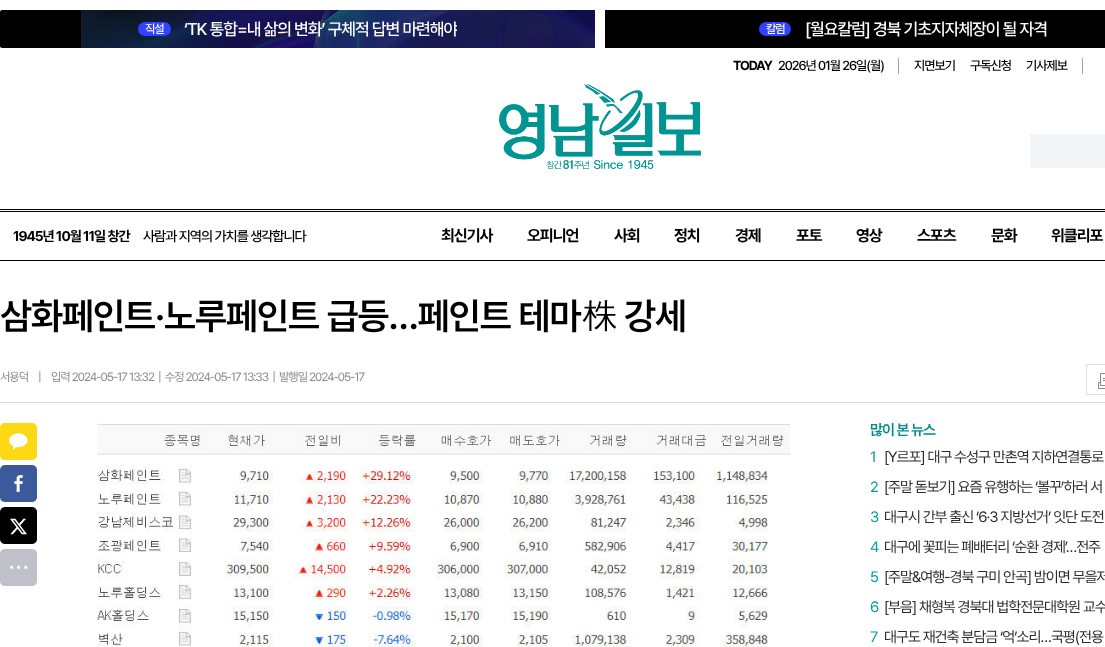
<!DOCTYPE html>
<meta charset="utf-8">
<style>body { margin: 0 } canvas { display: block }</style>
<canvas id="canvas" width="1105" height="647"></canvas>
<img id="img1" src="images/1.png" hidden>
<img id="img2" src="images/2.png" hidden>
<img id="img3" src="images/3.png" hidden>
<img id="img4" src="images/4.png" hidden>
<img id="img5" src="images/5.png" hidden>
<img id="img6" src="images/6.png" hidden>
<img id="img7" src="images/7.png" hidden>
<img id="img8" src="images/8.png" hidden>
<script>
window.onload = function () {
    const canvas = document.getElementById('canvas');
    const context = canvas.getContext('2d');
    context.miterLimit = 4;
    context.fontKerning = 'normal';

    context.fillStyle = 'rgb(255, 255, 255)';
    context.fillRect(0, 0, 1105, 647);
    context.drawImage(document.getElementById('img1'), 0, 10, 595, 38);
    context.fillStyle = 'rgb(50, 66, 255)';
    context.beginPath();
    context.roundRect(138, 22, 33, 14, 7);
    context.fill();
    context.fillStyle = 'rgb(0, 0, 0)';
    context.fillRect(605, 10, 500, 38);
    context.fillStyle = 'rgb(50, 66, 255)';
    context.beginPath();
    context.roundRect(759, 22, 32, 14, 7);
    context.fill();
    context.fillStyle = 'rgb(162, 162, 162)';
    context.fillRect(898, 58, 1, 16);
    context.fillRect(1082, 58, 1, 16);
    context.fillStyle = 'rgb(0, 0, 0)';
    context.fillRect(0, 209, 1105, 1);
    context.drawImage(document.getElementById('img2'), 499, 84, 202, 85);
    context.fillStyle = 'rgb(242, 246, 249)';
    context.fillRect(1030, 134, 75, 34);
    context.fillStyle = 'rgb(0, 0, 0)';
    context.fillRect(0, 211, 1105, 1);
    context.fillRect(0, 260, 1105, 1);
    context.fillStyle = 'rgb(216, 217, 217)';
    context.fillRect(0, 402, 1105, 1);
    context.strokeStyle = 'rgb(224, 224, 224)';
    context.strokeRect(1086.5, 364.5, 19, 30);
    context.drawImage(document.getElementById('img3'), 1098, 373, 7, 16);
    context.drawImage(document.getElementById('img4'), 0, 423, 37, 37);
    context.drawImage(document.getElementById('img5'), 0, 465, 37, 37);
    context.drawImage(document.getElementById('img6'), 0, 507, 37, 37);
    context.drawImage(document.getElementById('img7'), 0, 549, 37, 37);
    context.drawImage(document.getElementById('img8'), 97, 423, 693, 224);
    context.letterSpacing = '-1px';
    context.font = '500 12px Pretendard';
    context.fillStyle = 'rgb(255, 255, 255)';
    context.fillText('직설', 145, 33);
    context.save();
    context.beginPath();
    context.rect(138, 10, 319, 38);
    context.clip();
    context.font = '500 17px Pretendard';
    context.fillText('‘TK 통합=내 삶의 변화’ 구체적 답변 마련해야', 184, 35);
    context.restore();
    context.fillText('칼럼', 766, 33);
    context.font = '500 17px Pretendard';
    context.fillText('[월요칼럼] 경북 기초지자체장이 될 자격', 805, 35);
    context.font = 'bold 13px Pretendard';
    context.fillStyle = 'rgb(0, 0, 0)';
    context.fillText('TODAY', 733, 70);
    context.font = '500 13px Pretendard';
    context.fillText('2026년 01월 26일(월)', 778, 70);
    context.fillText('지면보기', 914, 70);
    context.fillText('구독신청', 970, 70);
    context.fillText('기사제보', 1026, 70);
    context.font = 'bold 14px Pretendard';
    context.fillText('1945년 10월 11일 창간', 13, 241);
    context.font = '500 14px Pretendard';
    context.fillText('사람과 지역의 가치를 생각합니다', 143, 241);
    context.font = 'bold 16px Pretendard';
    context.fillText('최신기사', 441, 241);
    context.fillText('오피니언', 527, 241);
    context.fillText('사회', 614, 241);
    context.fillText('정치', 674, 241);
    context.fillText('경제', 735, 241);
    context.fillText('포토', 796, 241);
    context.fillText('영상', 856, 241);
    context.fillText('스포츠', 917, 241);
    context.fillText('문화', 991, 241);
    context.fillText('위클리포', 1051, 241);
    context.font = '600 37px Pretendard';
    context.fillText('삼화페인트·노루페인트 급등…페인트 테마', 0, 329);
    context.font = '37px Dotum';
    context.fillText('株', 581, 329);
    context.font = '600 37px Pretendard';
    context.fillText('강세', 624, 329);
    context.font = '12px Pretendard';
    context.fillStyle = 'rgb(139, 139, 139)';
    context.fillText('서용덕', 0, 381);
    context.fillText('|', 38, 381);
    context.fillText('입력 2024-05-17 13:32  |  수정 2024-05-17 13:33  |  발행일 2024-05-17', 51, 381);
    context.font = '600 15px Pretendard';
    context.fillStyle = 'rgb(0, 141, 138)';
    context.fillText('많이 본 뉴스', 870, 435);
    context.font = '15px Pretendard';
    context.fillStyle = 'rgb(1, 157, 154)';
    context.fillText('1', 870, 462);
    context.fillStyle = 'rgb(44, 44, 44)';
    context.fillText('[Y르포] 대구 수성구 만촌역 지하연결통로', 884, 462);
    context.fillStyle = 'rgb(1, 157, 154)';
    context.fillText('2', 870, 492);
    context.fillStyle = 'rgb(44, 44, 44)';
    context.fillText('[주말 돋보기] 요즘 유행하는 ‘볼꾸’하러 서', 884, 492);
    context.fillStyle = 'rgb(1, 157, 154)';
    context.fillText('3', 870, 522);
    context.fillStyle = 'rgb(44, 44, 44)';
    context.fillText('대구시 간부 출신 ‘6·3 지방선거’ 잇단 도전', 884, 522);
    context.fillStyle = 'rgb(1, 157, 154)';
    context.fillText('4', 870, 552);
    context.fillStyle = 'rgb(44, 44, 44)';
    context.fillText('대구에 꽃피는 폐배터리 ‘순환 경제’…전주', 884, 552);
    context.fillStyle = 'rgb(1, 157, 154)';
    context.fillText('5', 870, 582);
    context.fillStyle = 'rgb(44, 44, 44)';
    context.fillText('[주말&여행-경북 구미 안곡] 밤이면 무을저', 884, 582);
    context.fillStyle = 'rgb(1, 157, 154)';
    context.fillText('6', 870, 612);
    context.fillStyle = 'rgb(44, 44, 44)';
    context.fillText('[부음] 채형복 경북대 법학전문대학원 교수', 884, 612);
    context.fillStyle = 'rgb(1, 157, 154)';
    context.fillText('7', 870, 642);
    context.fillStyle = 'rgb(44, 44, 44)';
    context.fillText('대구도 재건축 분담금 ‘억’소리…국평(전용', 884, 642);
};
</script>
